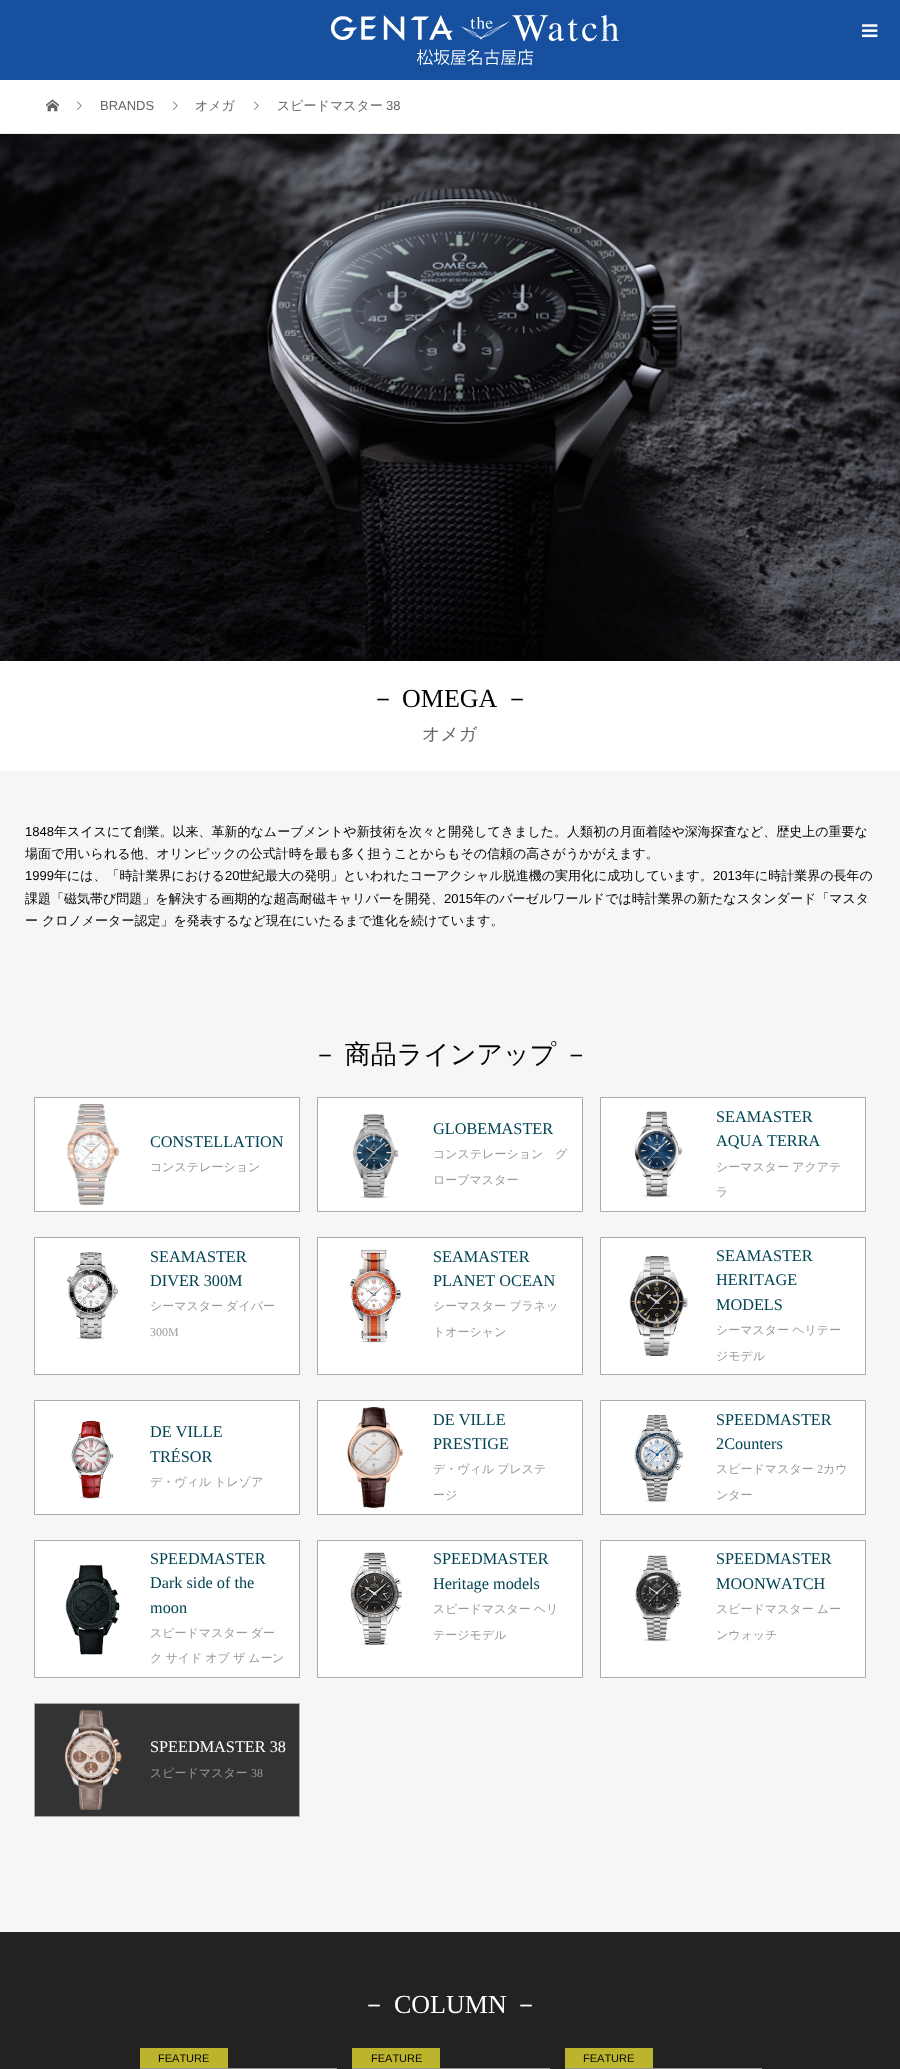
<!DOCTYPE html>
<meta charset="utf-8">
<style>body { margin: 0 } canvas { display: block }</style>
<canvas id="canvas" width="900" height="2069"></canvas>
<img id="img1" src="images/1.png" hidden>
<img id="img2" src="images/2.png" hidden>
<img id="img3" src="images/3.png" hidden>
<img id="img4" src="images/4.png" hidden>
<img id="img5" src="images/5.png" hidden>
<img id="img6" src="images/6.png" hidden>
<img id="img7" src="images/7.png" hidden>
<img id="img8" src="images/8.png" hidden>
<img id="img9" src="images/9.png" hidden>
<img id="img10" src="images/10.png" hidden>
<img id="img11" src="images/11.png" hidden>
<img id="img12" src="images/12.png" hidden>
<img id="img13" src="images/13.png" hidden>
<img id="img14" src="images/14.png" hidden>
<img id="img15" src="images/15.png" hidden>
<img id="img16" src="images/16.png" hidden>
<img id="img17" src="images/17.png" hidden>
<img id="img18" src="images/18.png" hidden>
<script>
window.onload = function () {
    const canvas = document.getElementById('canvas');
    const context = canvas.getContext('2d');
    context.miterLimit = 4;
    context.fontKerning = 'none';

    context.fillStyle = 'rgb(255, 255, 255)';
    context.fillRect(0, 0, 900, 2069);
    context.fillStyle = 'rgb(22, 80, 159)';
    context.fillRect(0, 0, 900, 80);
    context.drawImage(document.getElementById('img1'), 331, 15, 288, 50);
    context.drawImage(document.getElementById('img2'), 862, 24, 16, 14);
    context.fillStyle = 'rgb(238, 238, 238)';
    context.fillRect(0, 133, 900, 1);
    context.drawImage(document.getElementById('img3'), 46, 99, 13, 13);
    context.drawImage(document.getElementById('img4'), 77, 101, 5, 9);
    context.drawImage(document.getElementById('img4'), 173, 101, 5, 9);
    context.drawImage(document.getElementById('img4'), 254, 101, 5, 9);
    context.drawImage(document.getElementById('img5'), 0, 134, 900, 527);
    context.fillStyle = 'rgb(246, 246, 246)';
    context.fillRect(0, 771, 900, 1161);
    context.fillStyle = 'rgb(255, 255, 255)';
    context.beginPath();
    context.rect(34.5, 1097.5, 265, 114);
    context.fill();
    context.strokeStyle = 'rgb(170, 170, 170)';
    context.stroke();
    context.drawImage(document.getElementById('img6'), 67, 1104, 53, 101);
    context.beginPath();
    context.rect(317.5, 1097.5, 265, 114);
    context.fill();
    context.stroke();
    context.drawImage(document.getElementById('img7'), 352, 1114, 47, 85);
    context.beginPath();
    context.rect(600.5, 1097.5, 265, 114);
    context.fill();
    context.stroke();
    context.drawImage(document.getElementById('img8'), 634, 1111, 49, 87);
    context.beginPath();
    context.rect(34.5, 1237.5, 265, 137);
    context.fill();
    context.stroke();
    context.drawImage(document.getElementById('img9'), 67, 1252, 51, 88);
    context.beginPath();
    context.rect(317.5, 1237.5, 265, 137);
    context.fill();
    context.stroke();
    context.drawImage(document.getElementById('img10'), 350, 1249, 51, 94);
    context.beginPath();
    context.rect(600.5, 1237.5, 265, 137);
    context.fill();
    context.stroke();
    context.drawImage(document.getElementById('img11'), 629, 1256, 60, 100);
    context.beginPath();
    context.rect(34.5, 1400.5, 265, 114);
    context.fill();
    context.stroke();
    context.drawImage(document.getElementById('img12'), 71, 1420, 42, 79);
    context.beginPath();
    context.rect(317.5, 1400.5, 265, 114);
    context.fill();
    context.stroke();
    context.drawImage(document.getElementById('img13'), 347, 1407, 56, 101);
    context.beginPath();
    context.rect(600.5, 1400.5, 265, 114);
    context.fill();
    context.stroke();
    context.drawImage(document.getElementById('img14'), 634, 1415, 49, 87);
    context.beginPath();
    context.rect(34.5, 1540.5, 265, 137);
    context.fill();
    context.stroke();
    context.drawImage(document.getElementById('img15'), 65, 1564, 55, 91);
    context.beginPath();
    context.rect(317.5, 1540.5, 265, 137);
    context.fill();
    context.stroke();
    context.drawImage(document.getElementById('img16'), 350, 1552, 52, 94);
    context.beginPath();
    context.rect(600.5, 1540.5, 265, 137);
    context.fill();
    context.stroke();
    context.drawImage(document.getElementById('img17'), 635, 1555, 47, 87);
    context.fillStyle = 'rgb(51, 51, 51)';
    context.beginPath();
    context.rect(34.5, 1703.5, 265, 113);
    context.fill();
    context.stroke();
    context.drawImage(document.getElementById('img18'), 64, 1710, 58, 100);
    context.fillStyle = 'rgb(34, 34, 34)';
    context.fillRect(0, 1932, 900, 137);
    context.fillStyle = 'rgb(188, 180, 45)';
    context.fillRect(140, 2048, 88, 20);
    context.strokeStyle = 'rgb(147, 147, 147)';
    context.strokeRect(140.5, 2068.5, 196, 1);
    context.fillRect(352, 2048, 88, 20);
    context.strokeRect(352.5, 2068.5, 197, 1);
    context.fillRect(565, 2048, 88, 20);
    context.strokeRect(565.5, 2068.5, 196, 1);
    context.font = '13px Liberation Sans';
    context.fillStyle = 'rgb(102, 102, 102)';
    context.fillText('BRANDS', 100, 110);
    context.font = '500 13px WenQuanYi Zen Hei';
    context.fillText('オメガ', 195, 110);
    context.fillText('スピードマスター', 277, 110);
    context.font = '13px Liberation Sans';
    context.fillText('38', 386, 110);
    context.font = '500 26px WenQuanYi Zen Hei';
    context.fillStyle = 'rgb(0, 0, 0)';
    context.fillText('－', 370, 707);
    context.font = '26px Liberation Serif';
    context.fillText('OMEGA', 402, 707);
    context.font = '500 26px WenQuanYi Zen Hei';
    context.fillText('－', 504, 707);
    context.font = '500 18px WenQuanYi Zen Hei';
    context.fillStyle = 'rgb(102, 102, 102)';
    context.fillText('オメガ', 422, 740);
    context.font = '13px Liberation Sans';
    context.fillStyle = 'rgb(0, 0, 0)';
    context.fillText('1848', 25, 836);
    context.font = '500 13px WenQuanYi Zen Hei';
    context.fillText('年スイスにて創業。以来、革新的なムーブメントや新技術を次々と開発してきました。人類初の月面着陸や深海探査など、歴史上の重要な', 54, 836);
    context.fillText('場面で用いられる他、オリンピックの公式計時を最も多く担うことからもその信頼の高さがうかがえます。', 25, 858);
    context.font = '13px Liberation Sans';
    context.fillText('1999', 25, 880);
    context.font = '500 13px WenQuanYi Zen Hei';
    context.fillText('年には、「時計業界における', 54, 880);
    context.font = '13px Liberation Sans';
    context.fillText('20', 225, 880);
    context.font = '500 13px WenQuanYi Zen Hei';
    context.fillText('世紀最大の発明」といわれたコーアクシャル脱進機の実用化に成功しています。', 239, 880);
    context.font = '13px Liberation Sans';
    context.fillText('2013', 713, 880);
    context.font = '500 13px WenQuanYi Zen Hei';
    context.fillText('年に時計業界の長年の', 742, 880);
    context.fillText('課題「磁気帯び問題」を解決する画期的な超高耐磁キャリバーを開発、', 25, 903);
    context.font = '13px Liberation Sans';
    context.fillText('2015', 444, 903);
    context.font = '500 13px WenQuanYi Zen Hei';
    context.fillText('年のバーゼルワールドでは時計業界の新たなスタンダード「マスタ', 473, 903);
    context.fillText('ー クロノメーター認定」を発表するなど現在にいたるまで進化を続けています。', 25, 925);
    context.wordSpacing = '-1px';
    context.font = '500 26px WenQuanYi Zen Hei';
    context.fillText('－ 商品ラインアップ －', 312, 1063);
    context.wordSpacing = '0px';
    context.font = '16.25px Liberation Serif';
    context.fillStyle = 'rgb(0, 67, 83)';
    context.fillText('CONSTELLATION', 150, 1147);
    context.font = '500 12px WenQuanYi Zen Hei';
    context.fillStyle = 'rgb(153, 153, 153)';
    context.fillText('コンステレーション', 150, 1171);
    context.font = '16.25px Liberation Serif';
    context.fillStyle = 'rgb(0, 67, 83)';
    context.fillText('GLOBEMASTER', 433, 1134);
    context.font = '500 12px WenQuanYi Zen Hei';
    context.fillStyle = 'rgb(153, 153, 153)';
    context.fillText('コンステレーション　グ', 433, 1158);
    context.fillText('ローブマスター', 433, 1184);
    context.font = '16.25px Liberation Serif';
    context.fillStyle = 'rgb(0, 67, 83)';
    context.fillText('SEAMASTER', 716, 1122);
    context.fillText('AQUA TERRA', 716, 1146);
    context.wordSpacing = '-0.5px';
    context.font = '500 12px WenQuanYi Zen Hei';
    context.fillStyle = 'rgb(153, 153, 153)';
    context.fillText('シーマスター アクアテ', 716, 1171);
    context.wordSpacing = '0px';
    context.fillText('ラ', 716, 1196);
    context.font = '16.25px Liberation Serif';
    context.fillStyle = 'rgb(0, 67, 83)';
    context.fillText('SEAMASTER', 150, 1262);
    context.fillText('DIVER 300M', 150, 1286);
    context.font = '500 12px WenQuanYi Zen Hei';
    context.fillStyle = 'rgb(153, 153, 153)';
    context.fillText('シーマスタ', 150, 1310);
    context.wordSpacing = '-0.5px';
    context.fillText('ー ダイバ', 211, 1310);
    context.wordSpacing = '0px';
    context.fillText('ー', 263, 1310);
    context.font = '12px Liberation Serif';
    context.fillText('300M', 150, 1336);
    context.font = '16.25px Liberation Serif';
    context.fillStyle = 'rgb(0, 67, 83)';
    context.fillText('SEAMASTER', 433, 1262);
    context.fillText('PLANET OCEAN', 433, 1286);
    context.wordSpacing = '-0.5px';
    context.font = '500 12px WenQuanYi Zen Hei';
    context.fillStyle = 'rgb(153, 153, 153)';
    context.fillText('シーマスター プラネッ', 433, 1310);
    context.wordSpacing = '0px';
    context.fillText('トオーシャン', 433, 1336);
    context.font = '16.25px Liberation Serif';
    context.fillStyle = 'rgb(0, 67, 83)';
    context.fillText('SEAMASTER', 716, 1261);
    context.fillText('HERITAGE', 716, 1285);
    context.fillText('MODELS', 716, 1310);
    context.wordSpacing = '-0.5px';
    context.font = '500 12px WenQuanYi Zen Hei';
    context.fillStyle = 'rgb(153, 153, 153)';
    context.fillText('シーマスター ヘリテー', 716, 1334);
    context.wordSpacing = '0px';
    context.fillText('ジモデル', 716, 1360);
    context.font = '16.25px Liberation Serif';
    context.fillStyle = 'rgb(0, 67, 83)';
    context.fillText('DE VILLE', 150, 1437);
    context.fillText('TRÉSOR', 150, 1462);
    context.wordSpacing = '-0.5px';
    context.font = '500 12px WenQuanYi Zen Hei';
    context.fillStyle = 'rgb(153, 153, 153)';
    context.fillText('デ・ヴィル トレゾア', 150, 1486);
    context.wordSpacing = '0px';
    context.font = '16.25px Liberation Serif';
    context.fillStyle = 'rgb(0, 67, 83)';
    context.fillText('DE VILLE', 433, 1425);
    context.fillText('PRESTIGE', 433, 1449);
    context.wordSpacing = '-0.5px';
    context.font = '500 12px WenQuanYi Zen Hei';
    context.fillStyle = 'rgb(153, 153, 153)';
    context.fillText('デ・ヴィル プレステ', 433, 1473);
    context.wordSpacing = '0px';
    context.fillText('ージ', 433, 1499);
    context.font = '16.25px Liberation Serif';
    context.fillStyle = 'rgb(0, 67, 83)';
    context.fillText('SPEEDMASTER', 716, 1425);
    context.fillText('2Counters', 716, 1449);
    context.font = '500 12px WenQuanYi Zen Hei';
    context.fillStyle = 'rgb(153, 153, 153)';
    context.fillText('スピードマスター', 716, 1473);
    context.font = '12px Liberation Serif';
    context.fillText('2', 817, 1473);
    context.font = '500 12px WenQuanYi Zen Hei';
    context.fillText('カウ', 823, 1473);
    context.fillText('ンター', 716, 1499);
    context.font = '16.25px Liberation Serif';
    context.fillStyle = 'rgb(0, 67, 83)';
    context.fillText('SPEEDMASTER', 150, 1564);
    context.fillText('Dark side of the', 150, 1588);
    context.fillText('moon', 150, 1613);
    context.wordSpacing = '-0.5px';
    context.font = '500 12px WenQuanYi Zen Hei';
    context.fillStyle = 'rgb(153, 153, 153)';
    context.fillText('スピードマスター ダー', 150, 1637);
    context.fillText('ク サイド オブ ザ ムー', 150, 1662);
    context.wordSpacing = '0px';
    context.fillText('ン', 272, 1662);
    context.font = '16.25px Liberation Serif';
    context.fillStyle = 'rgb(0, 67, 83)';
    context.fillText('SPEEDMASTER', 433, 1564);
    context.fillText('Heritage models', 433, 1589);
    context.wordSpacing = '-0.5px';
    context.font = '500 12px WenQuanYi Zen Hei';
    context.fillStyle = 'rgb(153, 153, 153)';
    context.fillText('スピードマスター ヘリ', 433, 1613);
    context.wordSpacing = '0px';
    context.fillText('テージモデル', 433, 1639);
    context.font = '16.25px Liberation Serif';
    context.fillStyle = 'rgb(0, 67, 83)';
    context.fillText('SPEEDMASTER', 716, 1564);
    context.fillText('MOONWATCH', 716, 1589);
    context.wordSpacing = '-0.5px';
    context.font = '500 12px WenQuanYi Zen Hei';
    context.fillStyle = 'rgb(153, 153, 153)';
    context.fillText('スピードマスター ムー', 716, 1613);
    context.wordSpacing = '0px';
    context.fillText('ンウォッチ', 716, 1639);
    context.font = '16.25px Liberation Serif';
    context.fillStyle = 'rgb(255, 255, 255)';
    context.fillText('SPEEDMASTER 38', 150, 1752);
    context.font = '500 12px WenQuanYi Zen Hei';
    context.fillStyle = 'rgb(153, 153, 153)';
    context.fillText('スピードマスター', 150, 1777);
    context.font = '12px Liberation Serif';
    context.fillText('38', 251, 1777);
    context.font = '500 26px WenQuanYi Zen Hei';
    context.fillStyle = 'rgb(255, 255, 255)';
    context.fillText('－', 361, 2013);
    context.font = '26px Liberation Serif';
    context.fillText('COLUMN', 394, 2013);
    context.font = '500 26px WenQuanYi Zen Hei';
    context.fillText('－', 513, 2013);
    context.font = '11px Liberation Sans';
    context.fillStyle = 'rgb(0, 0, 0)';
    context.fillText('FEATURE', 158, 2062);
    context.fillText('FEATURE', 371, 2062);
    context.fillText('FEATURE', 583, 2062);
};
</script>
